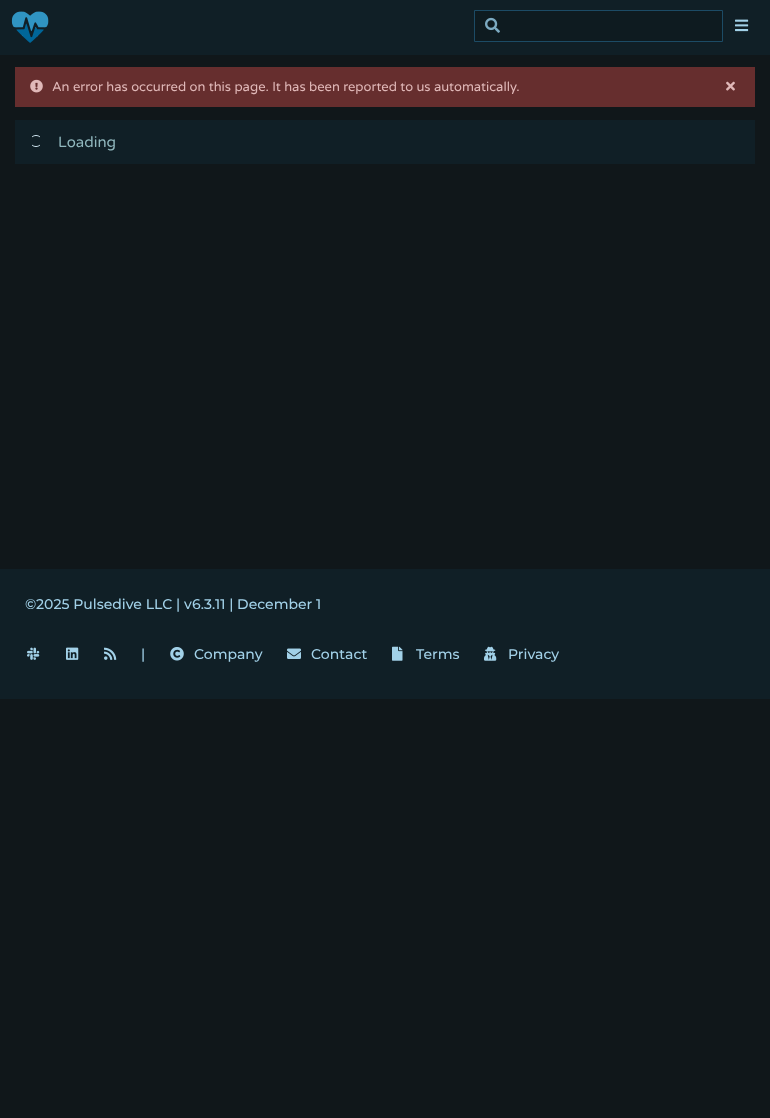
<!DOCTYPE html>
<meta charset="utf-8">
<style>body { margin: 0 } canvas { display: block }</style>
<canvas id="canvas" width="770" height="1118"></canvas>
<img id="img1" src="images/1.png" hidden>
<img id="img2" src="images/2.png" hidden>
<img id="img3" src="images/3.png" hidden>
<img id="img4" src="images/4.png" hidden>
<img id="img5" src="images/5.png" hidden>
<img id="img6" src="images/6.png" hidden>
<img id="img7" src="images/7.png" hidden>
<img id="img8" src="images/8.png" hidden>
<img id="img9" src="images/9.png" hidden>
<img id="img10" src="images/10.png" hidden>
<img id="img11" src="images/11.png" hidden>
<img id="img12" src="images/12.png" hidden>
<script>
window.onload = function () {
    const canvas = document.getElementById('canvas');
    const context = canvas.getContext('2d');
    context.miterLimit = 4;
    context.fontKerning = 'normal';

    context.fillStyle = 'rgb(16, 23, 26)';
    context.fillRect(0, 0, 770, 1118);
    context.fillStyle = 'rgb(16, 31, 38)';
    context.fillRect(0, 0, 770, 55);
    context.drawImage(document.getElementById('img1'), 11, 11, 38, 32);
    context.fillStyle = 'rgb(14, 27, 32)';
    context.beginPath();
    context.rect(474.5, 10.5, 248, 31);
    context.fill();
    context.strokeStyle = 'rgb(28, 75, 101)';
    context.stroke();
    context.drawImage(document.getElementById('img2'), 485, 17, 15, 16);
    context.drawImage(document.getElementById('img3'), 735, 19, 14, 13);
    context.fillStyle = 'rgb(102, 46, 46)';
    context.fillRect(15, 67, 740, 40);
    context.drawImage(document.getElementById('img4'), 30, 79, 13, 14);
    context.drawImage(document.getElementById('img5'), 726, 81, 9, 10);
    context.fillStyle = 'rgb(16, 31, 38)';
    context.fillRect(15, 120, 740, 44);
    context.beginPath();
    context.moveTo(32, 137);
    context.bezierCurveTo(34, 135, 38, 135, 40, 137);
    context.moveTo(40, 145);
    context.bezierCurveTo(38, 147, 34, 147, 32, 145);
    context.strokeStyle = 'rgb(206, 228, 239)';
    context.stroke();
    context.fillRect(0, 569, 770, 130);
    context.drawImage(document.getElementById('img6'), 27, 647, 13, 13);
    context.drawImage(document.getElementById('img7'), 66, 647, 13, 13);
    context.drawImage(document.getElementById('img8'), 104, 647, 13, 13);
    context.drawImage(document.getElementById('img9'), 170, 647, 14, 14);
    context.drawImage(document.getElementById('img10'), 287, 648, 14, 11);
    context.drawImage(document.getElementById('img11'), 392, 646, 11, 15);
    context.drawImage(document.getElementById('img12'), 484, 646, 13, 15);
    context.font = '13px Varela Round';
    context.fillStyle = 'rgb(224, 184, 184)';
    context.fillText('An error has occurred on this page. It has been reported to us automatically.', 52, 91);
    context.font = '15px Varela Round';
    context.fillStyle = 'rgb(144, 183, 189)';
    context.fillText('Loading', 58, 147);
    context.font = '500 14px Montserrat';
    context.fillStyle = 'rgb(162, 209, 232)';
    context.fillText('©2025 Pulsedive LLC | v6.3.11 | December 1', 25, 609);
    context.fillText('|', 141, 659);
    context.fillText('Company', 194, 659);
    context.fillText('Contact', 311, 659);
    context.fillText('Terms', 416, 659);
    context.fillText('Privacy', 508, 659);
};
</script>
